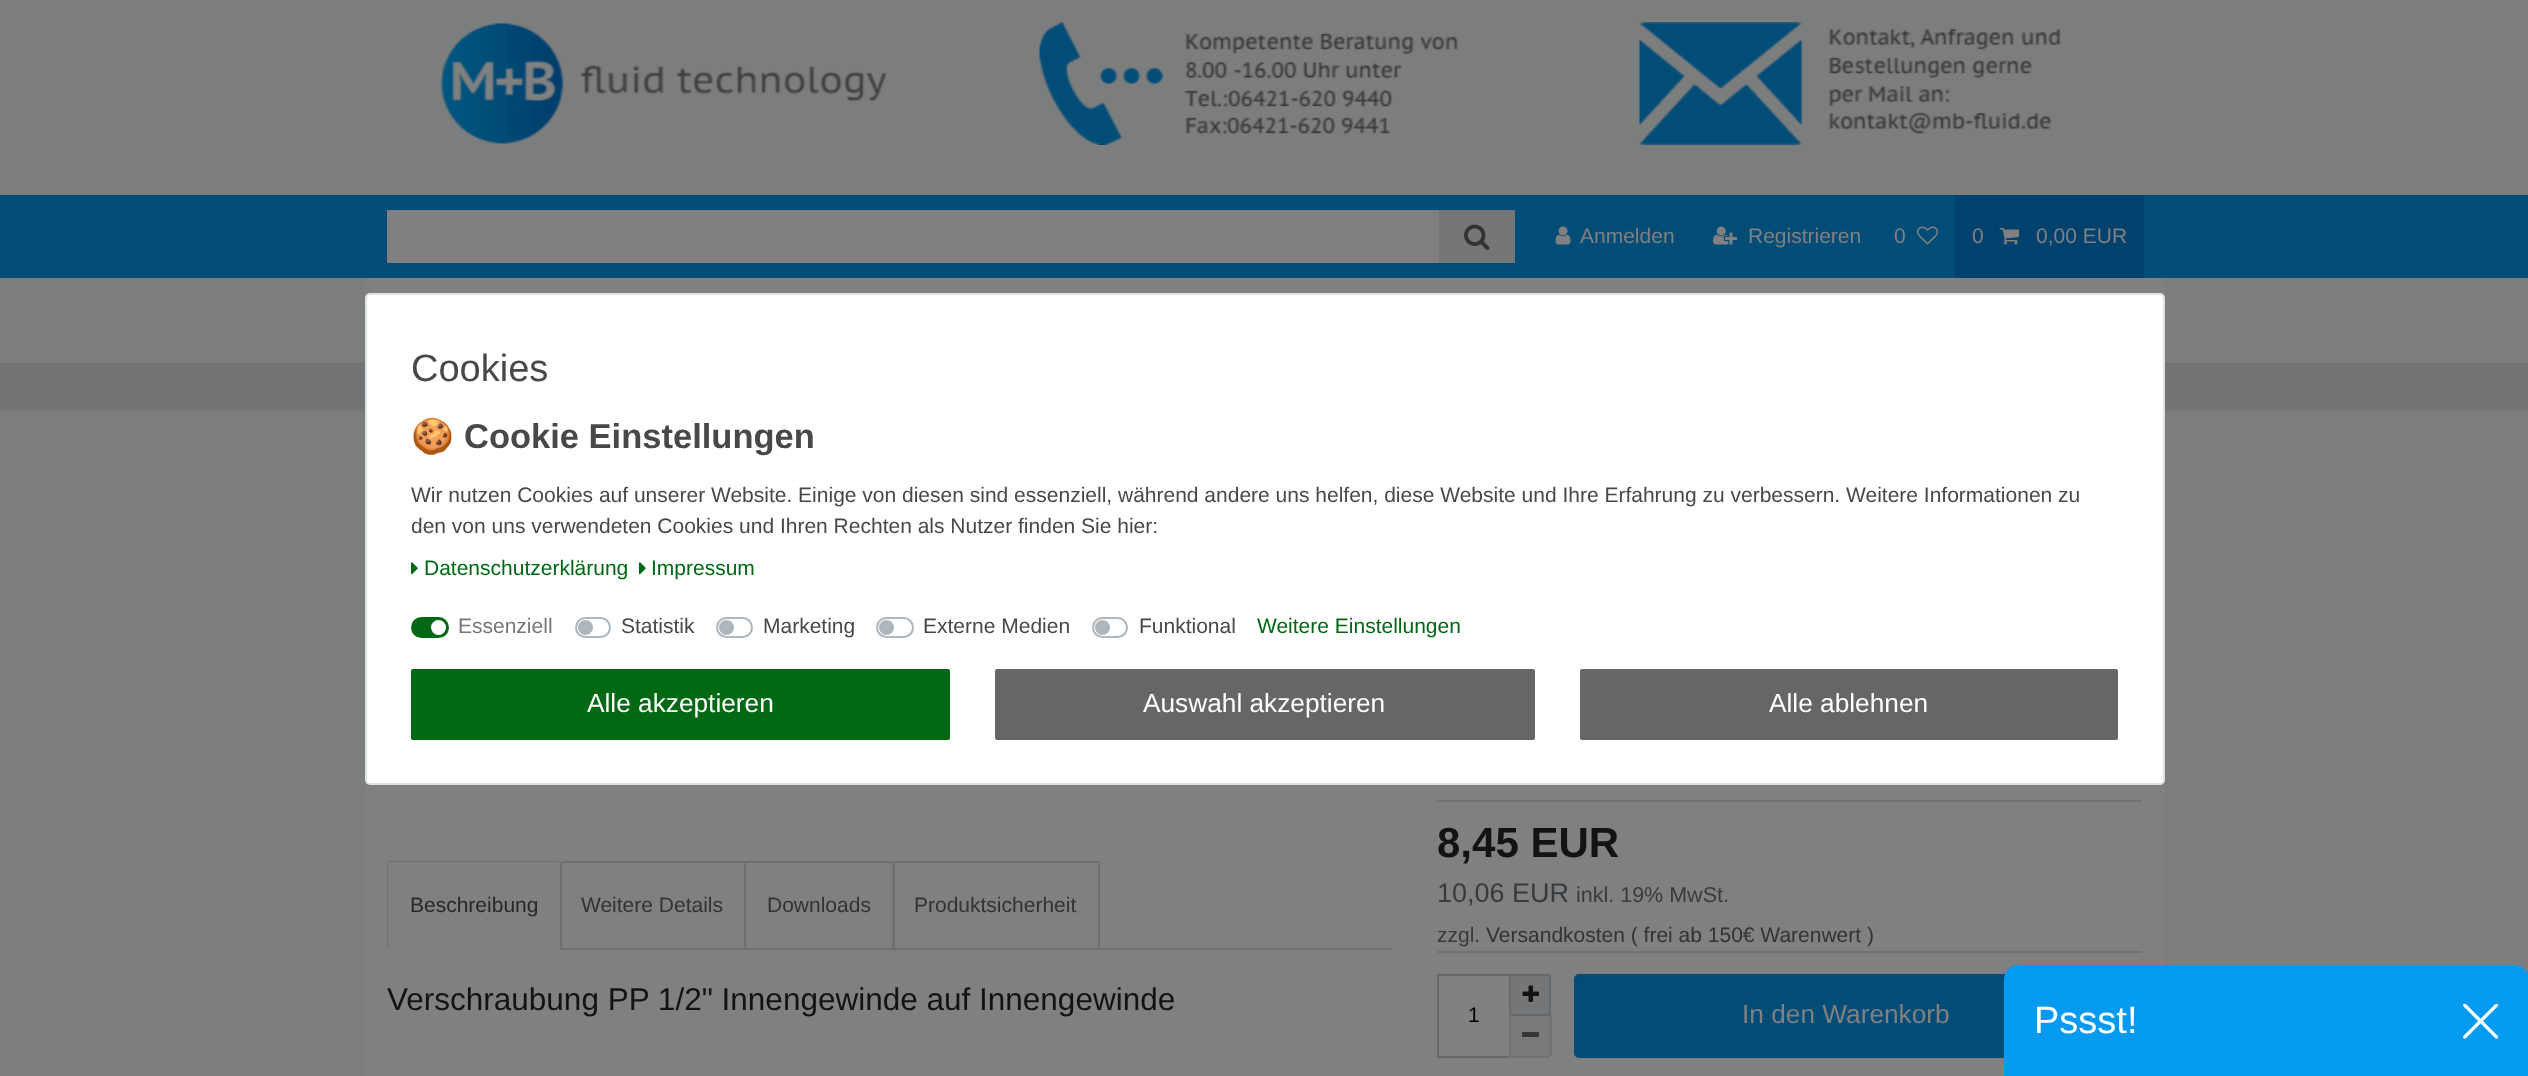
<!DOCTYPE html>
<meta charset="utf-8">
<style>body { margin: 0 } canvas { display: block }</style>
<canvas id="canvas" width="2528" height="1076"></canvas>
<img id="img1" src="images/1.png" hidden>
<img id="img2" src="images/2.png" hidden>
<img id="img3" src="images/3.png" hidden>
<img id="img4" src="images/4.png" hidden>
<img id="img5" src="images/5.png" hidden>
<img id="img6" src="images/6.png" hidden>
<img id="img7" src="images/7.png" hidden>
<img id="img8" src="images/8.png" hidden>
<img id="img9" src="images/9.png" hidden>
<img id="img10" src="images/10.png" hidden>
<img id="img11" src="images/11.png" hidden>
<script>
window.onload = function () {
    const canvas = document.getElementById('canvas');
    const context = canvas.getContext('2d');
    context.miterLimit = 4;
    context.fontKerning = 'normal';

    context.fillStyle = 'rgb(124, 125, 125)';
    context.fillRect(0, 0, 2528, 1076);
    context.drawImage(document.getElementById('img1'), 440, 23, 447, 121);
    context.drawImage(document.getElementById('img2'), 1039, 22, 419, 123);
    context.drawImage(document.getElementById('img3'), 1639, 22, 422, 123);
    context.fillStyle = 'rgb(2, 77, 120)';
    context.fillRect(0, 195, 2528, 83);
    context.fillStyle = 'rgb(128, 128, 128)';
    context.fillRect(387, 210, 1052, 53);
    context.fillStyle = 'rgb(117, 118, 120)';
    context.fillRect(1439, 210, 76, 53);
    context.drawImage(document.getElementById('img4'), 1464, 224, 26, 26);
    context.drawImage(document.getElementById('img5'), 1555, 226, 16, 19);
    context.drawImage(document.getElementById('img6'), 1713, 226, 24, 19);
    context.drawImage(document.getElementById('img7'), 1917, 226, 21, 19);
    context.fillStyle = 'rgb(0, 65, 110)';
    context.fillRect(1955, 195, 189, 83);
    context.drawImage(document.getElementById('img8'), 1999, 228, 20, 17);
    context.fillStyle = 'rgb(111, 113, 115)';
    context.fillRect(0, 363, 2528, 2);
    context.fillStyle = 'rgb(128, 128, 128)';
    context.fillRect(365, 278, 1800, 20);
    context.fillStyle = 'rgb(114, 116, 118)';
    context.fillRect(0, 365, 2528, 46);
    context.fillStyle = 'rgb(128, 128, 128)';
    context.fillRect(365, 780, 1800, 296);
    context.fillStyle = 'rgb(111, 111, 111)';
    context.fillRect(1100, 948, 292, 2);
    context.beginPath();
    context.moveTo(389, 861);
    context.lineTo(388, 862);
    context.lineTo(389, 862);
    context.lineTo(559, 862);
    context.lineTo(560, 862);
    context.lineTo(559, 861);
    context.closePath();
    context.fill();
    context.beginPath();
    context.moveTo(387, 950);
    context.lineTo(388, 948);
    context.lineTo(388, 863);
    context.lineTo(388, 862);
    context.lineTo(387, 863);
    context.closePath();
    context.fill();
    context.beginPath();
    context.roundRect(561, 862, 184, 87, [1, 1, 0, 0]);
    context.strokeStyle = 'rgb(111, 111, 111)';
    context.lineWidth = 2;
    context.stroke();
    context.beginPath();
    context.roundRect(745, 862, 148, 87, [1, 1, 0, 0]);
    context.stroke();
    context.beginPath();
    context.roundRect(894, 862, 205, 87, [1, 1, 0, 0]);
    context.stroke();
    context.fillStyle = 'rgb(111, 113, 115)';
    context.fillRect(1437, 800, 705, 2);
    context.fillRect(1437, 951, 705, 2);
    context.fillStyle = 'rgb(103, 106, 109)';
    context.fillRect(1437, 974, 72, 2);
    context.fillRect(1437, 1056, 72, 2);
    context.fillRect(1437, 974, 2, 84);
    context.fillStyle = 'rgb(117, 118, 120)';
    context.beginPath();
    context.roundRect(1510, 975, 40, 40, [0, 1, 0, 0]);
    context.fill();
    context.strokeStyle = 'rgb(103, 106, 109)';
    context.stroke();
    context.drawImage(document.getElementById('img9'), 1522, 985, 17, 17);
    context.fillStyle = 'rgb(121, 122, 123)';
    context.beginPath();
    context.roundRect(1509, 1016, 42, 42, [0, 0, 2, 0]);
    context.fill();
    context.fillStyle = 'rgb(112, 114, 116)';
    context.fillRect(1550, 1016, 2, 40);
    context.fillRect(1509, 1056, 41, 2);
    context.fillRect(1509, 1016, 2, 42);
    context.fillStyle = 'rgb(53, 55, 56)';
    context.fillRect(1522, 1032, 17, 5);
    context.fillStyle = 'rgb(2, 77, 120)';
    context.beginPath();
    context.roundRect(1575, 975, 566, 82, 4);
    context.fill();
    context.strokeStyle = 'rgb(2, 77, 120)';
    context.stroke();
    context.fillStyle = 'rgb(255, 255, 255)';
    context.beginPath();
    context.roundRect(366, 294, 1798, 490, 4);
    context.fill();
    context.strokeStyle = 'rgb(222, 226, 230)';
    context.stroke();
    context.drawImage(document.getElementById('img10'), 411, 562, 7, 13);
    context.drawImage(document.getElementById('img10'), 639, 562, 7, 13);
    context.fillStyle = 'rgb(2, 104, 20)';
    context.beginPath();
    context.roundRect(412, 618, 36, 19, 9.5);
    context.fill();
    context.strokeStyle = 'rgb(2, 104, 20)';
    context.stroke();
    context.fillStyle = 'rgb(255, 255, 255)';
    context.beginPath();
    context.arc(438.5, 627.5, 7.5, 0, 2 * Math.PI);
    context.fill();
    context.beginPath();
    context.roundRect(576, 618, 34, 19, 9.5);
    context.strokeStyle = 'rgb(173, 181, 189)';
    context.stroke();
    context.fillStyle = 'rgb(173, 181, 189)';
    context.beginPath();
    context.arc(585.5, 627.5, 7.5, 0, 2 * Math.PI);
    context.fill();
    context.beginPath();
    context.roundRect(717, 618, 35, 19, 9.5);
    context.stroke();
    context.beginPath();
    context.arc(726.5, 627.5, 7.5, 0, 2 * Math.PI);
    context.fill();
    context.beginPath();
    context.roundRect(877, 618, 36, 19, 9.5);
    context.stroke();
    context.beginPath();
    context.arc(886.5, 627.5, 7.5, 0, 2 * Math.PI);
    context.fill();
    context.beginPath();
    context.roundRect(1093, 618, 34, 19, 9.5);
    context.stroke();
    context.beginPath();
    context.arc(1102.5, 627.5, 7.5, 0, 2 * Math.PI);
    context.fill();
    context.fillStyle = 'rgb(2, 104, 20)';
    context.beginPath();
    context.roundRect(412, 670, 537, 69, 1);
    context.fill();
    context.strokeStyle = 'rgb(2, 104, 20)';
    context.stroke();
    context.fillStyle = 'rgb(102, 102, 102)';
    context.beginPath();
    context.roundRect(996, 670, 538, 69, 1);
    context.fill();
    context.strokeStyle = 'rgb(102, 102, 102)';
    context.stroke();
    context.beginPath();
    context.roundRect(1581, 670, 536, 69, 1);
    context.fill();
    context.stroke();
    context.fillStyle = 'rgb(3, 154, 239)';
    context.beginPath();
    context.moveTo(2019, 965);
    context.lineTo(2514, 965);
    context.bezierCurveTo(2522.5, 965, 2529, 971.5, 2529, 980);
    context.lineTo(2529, 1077);
    context.lineTo(2004, 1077);
    context.lineTo(2004, 980);
    context.bezierCurveTo(2004, 971.5, 2010.5, 965, 2019, 965);
    context.closePath();
    context.fill();
    context.drawImage(document.getElementById('img11'), 2463, 1004, 36, 35);
    context.font = '21px Liberation Sans';
    context.fillStyle = 'rgb(128, 128, 128)';
    context.fillText('Anmelden', 1580, 243);
    context.fillText('Registrieren', 1748, 243);
    context.fillText('0', 1894, 243);
    context.fillText('0', 1972, 243);
    context.fillText('0,00 EUR', 2036, 243);
    context.fillStyle = 'rgb(37, 40, 44)';
    context.fillText('Beschreibung', 410, 912);
    context.fillStyle = 'rgb(51, 51, 51)';
    context.fillText('Weitere Details', 581, 912);
    context.fillText('Downloads', 767, 912);
    context.fillText('Produktsicherheit', 914, 912);
    context.font = '31.5px Liberation Sans';
    context.fillStyle = 'rgb(17, 19, 21)';
    context.fillText('Verschraubung PP 1/2" Innengewinde auf Innengewinde', 387, 1010);
    context.font = 'bold 42px Liberation Sans';
    context.fillText('8,45 EUR', 1437, 857);
    context.font = '27px Liberation Sans';
    context.fillStyle = 'rgb(54, 59, 63)';
    context.fillText('10,06 EUR', 1437, 902);
    context.font = '21.5px Liberation Sans';
    context.fillText('inkl. 19% MwSt.', 1576, 902);
    context.font = '21px Liberation Sans';
    context.fillText('zzgl.', 1437, 942);
    context.fillStyle = 'rgb(51, 51, 51)';
    context.fillText('Versandkosten ( frei ab 150€ Warenwert )', 1486, 942);
    context.fillStyle = 'rgb(0, 0, 0)';
    context.fillText('1', 1468, 1022);
    context.font = '26.25px Liberation Sans';
    context.fillStyle = 'rgb(128, 128, 128)';
    context.fillText('In den Warenkorb', 1742, 1023);
    context.font = '38px Liberation Sans';
    context.fillStyle = 'rgb(72, 72, 72)';
    context.fillText('Cookies', 411, 381);
    context.font = 'bold 34.5px Noto Color Emoji';
    context.fillText('🍪', 411, 448);
    context.font = 'bold 34.5px Liberation Sans';
    context.fillText('Cookie Einstellungen', 464, 448);
    context.font = '21px Liberation Sans';
    context.fillText('Wir nutzen Cookies auf unserer Website. Einige von diesen sind essenziell, während andere uns helfen, diese Website und Ihre Erfahrung zu verbessern. Weitere Informationen zu', 411, 502);
    context.fillText('den von uns verwendeten Cookies und Ihren Rechten als Nutzer finden Sie hier:', 411, 533);
    context.fillStyle = 'rgb(2, 104, 20)';
    context.fillText('Datenschutzerklärung', 424, 575);
    context.fillText('Impressum', 651, 575);
    context.fillStyle = 'rgb(118, 118, 118)';
    context.fillText('Essenziell', 458, 633);
    context.fillStyle = 'rgb(72, 72, 72)';
    context.fillText('Statistik', 621, 633);
    context.fillText('Marketing', 763, 633);
    context.fillText('Externe Medien', 923, 633);
    context.fillText('Funktional', 1139, 633);
    context.fillStyle = 'rgb(2, 104, 20)';
    context.fillText('Weitere Einstellungen', 1257, 633);
    context.font = '26.25px Liberation Sans';
    context.fillStyle = 'rgb(255, 255, 255)';
    context.fillText('Alle akzeptieren', 587, 712);
    context.fillText('Auswahl akzeptieren', 1143, 712);
    context.fillText('Alle ablehnen', 1769, 712);
    context.font = '38px Liberation Sans';
    context.fillText('Pssst!', 2034, 1033);
};
</script>
